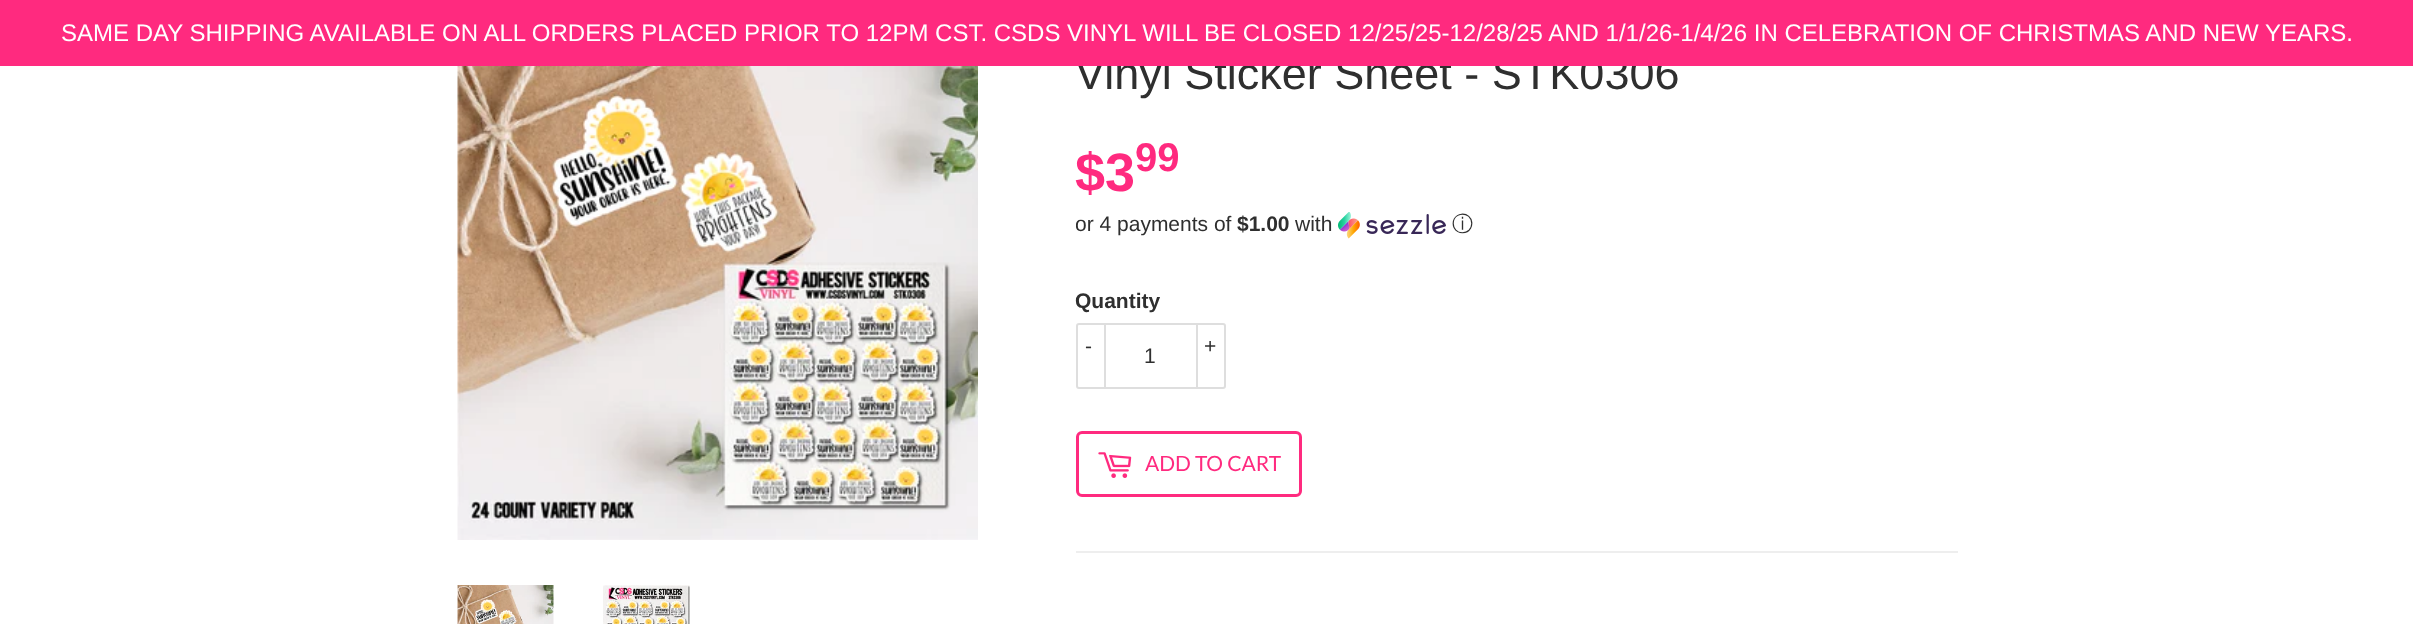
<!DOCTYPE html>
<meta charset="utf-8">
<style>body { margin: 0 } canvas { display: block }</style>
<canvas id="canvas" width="2413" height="624"></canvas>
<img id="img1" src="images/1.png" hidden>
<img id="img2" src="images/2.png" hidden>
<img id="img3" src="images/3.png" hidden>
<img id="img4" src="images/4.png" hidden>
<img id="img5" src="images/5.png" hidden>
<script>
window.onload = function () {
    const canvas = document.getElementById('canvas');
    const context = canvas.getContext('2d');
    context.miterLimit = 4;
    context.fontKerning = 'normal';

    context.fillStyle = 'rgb(255, 255, 255)';
    context.fillRect(0, 0, 2413, 624);
    context.drawImage(document.getElementById('img1'), 457, 66, 521, 474);
    context.drawImage(document.getElementById('img2'), 457, 585, 97, 39);
    context.drawImage(document.getElementById('img3'), 603, 585, 87, 39);
    context.drawImage(document.getElementById('img4'), 1338, 212, 108, 27);
    context.beginPath();
    context.roundRect(1077, 324, 148, 64, 2);
    context.strokeStyle = 'rgb(222, 222, 222)';
    context.lineWidth = 2;
    context.stroke();
    context.fillStyle = 'rgb(222, 222, 222)';
    context.fillRect(1104, 323, 2, 66);
    context.fillRect(1196, 323, 2, 66);
    context.beginPath();
    context.roundRect(1077.5, 432.5, 223, 63, 4.5);
    context.strokeStyle = 'rgb(255, 42, 127)';
    context.lineWidth = 3;
    context.stroke();
    context.drawImage(document.getElementById('img5'), 1098, 452, 34, 26);
    context.fillStyle = 'rgb(238, 238, 238)';
    context.fillRect(1076, 551, 882, 2);
    context.font = '45px Liberation Sans';
    context.fillStyle = 'rgb(47, 47, 47)';
    context.fillText('Vinyl Sticker Sheet - STK0306', 1075, 89);
    context.fillStyle = 'rgb(255, 42, 127)';
    context.fillRect(0, 0, 2413, 66);
    context.font = '24px Liberation Sans';
    context.fillStyle = 'rgb(255, 255, 255)';
    context.fillText('SAME DAY SHIPPING AVAILABLE ON ALL ORDERS PLACED PRIOR TO 12PM CST. CSDS VINYL WILL BE CLOSED 12/25/25-12/28/25 AND 1/1/26-1/4/26 IN CELEBRATION OF CHRISTMAS AND NEW YEARS.', 61, 41);
    context.font = 'bold 54px Liberation Sans';
    context.fillStyle = 'rgb(255, 42, 127)';
    context.fillText('$3', 1075, 191);
    context.font = 'bold 40px Liberation Sans';
    context.fillText('99', 1135, 171);
    context.save();
    context.beginPath();
    context.rect(1076, 210, 882, 29);
    context.clip();
    context.font = '21px Liberation Sans';
    context.fillStyle = 'rgb(47, 47, 47)';
    context.fillText('or 4 payments of', 1075, 231);
    context.restore();
    context.font = 'bold 21px Liberation Sans';
    context.fillStyle = 'rgb(47, 47, 47)';
    context.fillText('$1.00', 1237, 231);
    context.font = '21px Liberation Sans';
    context.fillText('with', 1295, 231);
    context.font = '500 21px WenQuanYi Zen Hei';
    context.fillText('ⓘ', 1452, 231);
    context.font = 'bold 21px Liberation Sans';
    context.fillText('Quantity', 1075, 308);
    context.font = '21px Liberation Sans';
    context.fillText('-', 1085, 353);
    context.fillText('+', 1204, 353);
    context.fillText('1', 1144, 363);
    context.font = '21px Lato';
    context.fillStyle = 'rgb(255, 42, 127)';
    context.fillText('ADD TO CART', 1145, 471);
};
</script>
